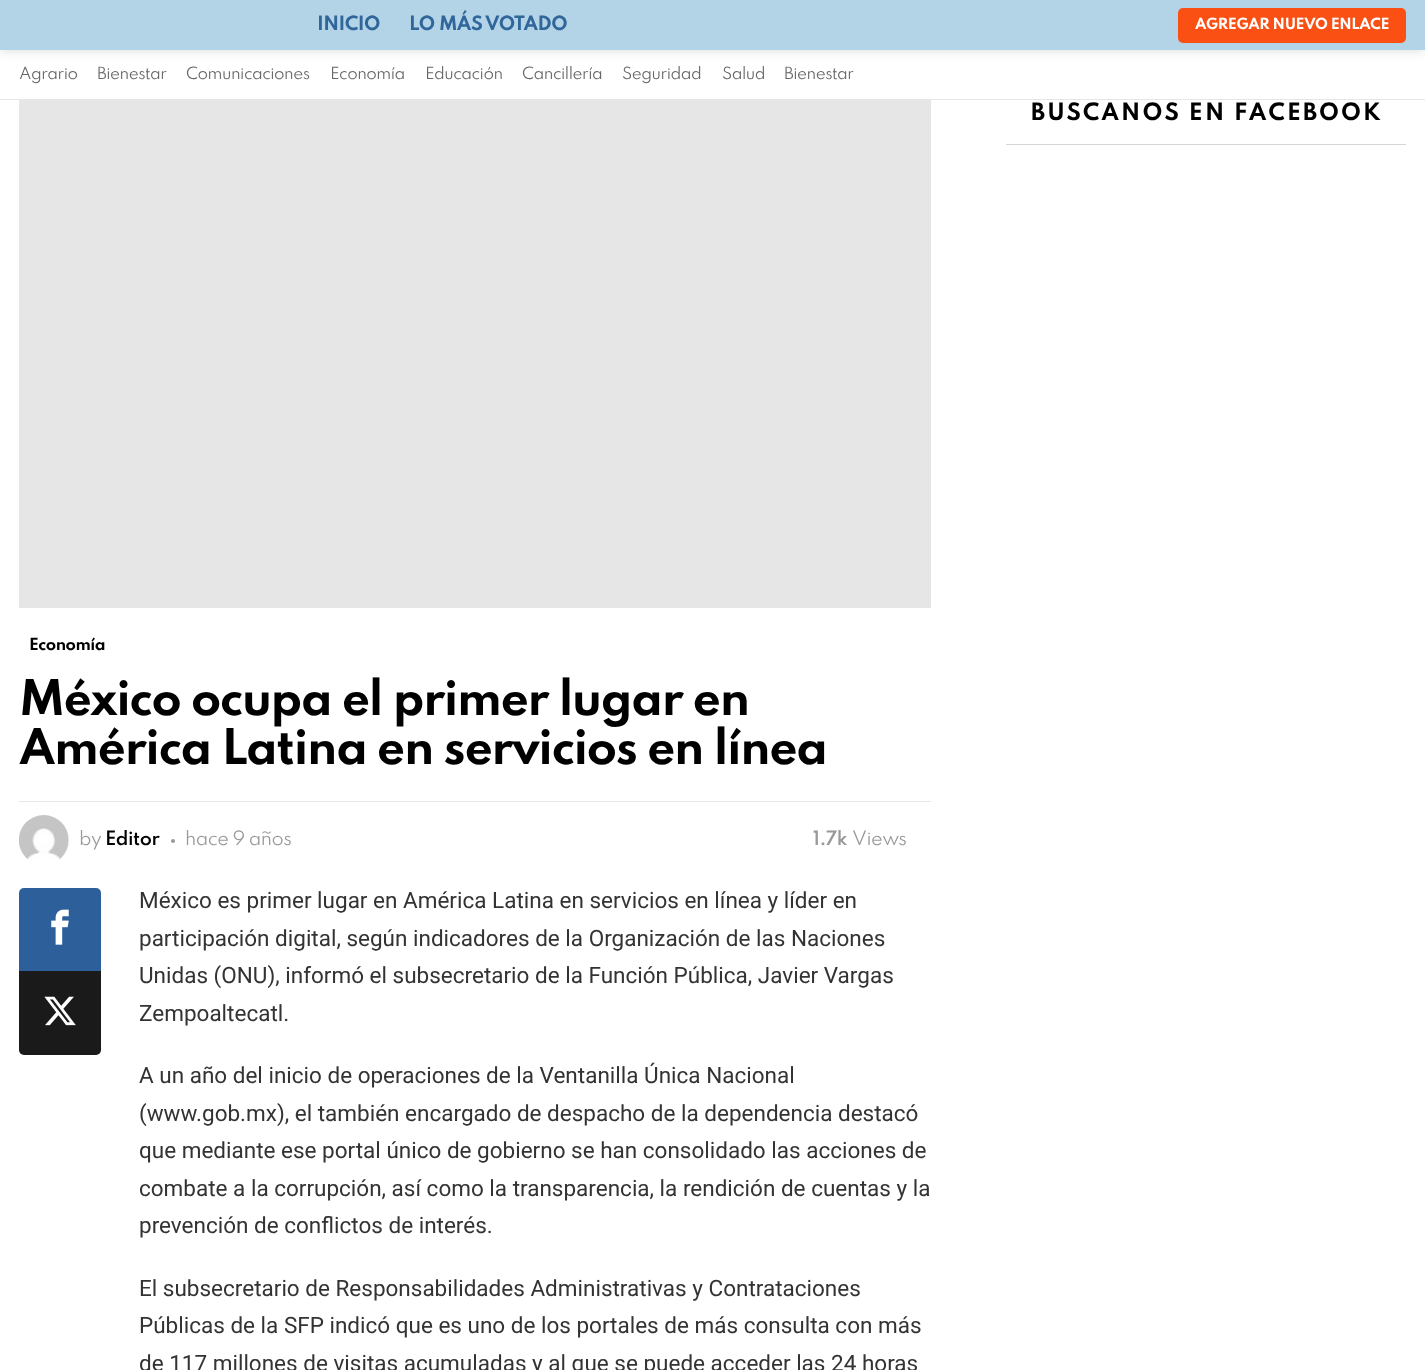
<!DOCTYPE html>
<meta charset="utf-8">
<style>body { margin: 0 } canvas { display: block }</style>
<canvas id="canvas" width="1425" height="1370"></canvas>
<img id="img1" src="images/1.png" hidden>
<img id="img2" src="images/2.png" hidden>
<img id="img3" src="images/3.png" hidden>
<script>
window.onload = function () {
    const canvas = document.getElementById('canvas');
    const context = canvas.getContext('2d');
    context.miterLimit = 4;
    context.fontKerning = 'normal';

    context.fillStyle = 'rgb(255, 255, 255)';
    context.fillRect(0, 0, 1425, 1370);
    context.fillStyle = 'rgba(0, 0, 0, 0.15)';
    context.filter = 'blur(6px)';
    context.beginPath();
    context.rect(0, 0, 1425, 50);
    context.fill();
    context.filter = 'none';
    context.fillStyle = 'rgb(179, 212, 231)';
    context.fillRect(0, 0, 1425, 50);
    context.fillStyle = 'rgb(250, 80, 20)';
    context.beginPath();
    context.roundRect(1178, 8, 228, 35, 5);
    context.fill();
    context.fillStyle = 'rgb(230, 230, 230)';
    context.fillRect(0, 99, 1425, 1);
    context.fillStyle = 'rgb(212, 212, 212)';
    context.fillRect(1006, 144, 400, 1);
    context.fillStyle = 'rgb(230, 230, 230)';
    context.fillRect(19, 100, 912, 508);
    context.fillRect(19, 801, 912, 1);
    context.drawImage(document.getElementById('img1'), 19, 815, 50, 45);
    context.fillStyle = 'rgb(153, 153, 153)';
    context.beginPath();
    context.arc(173, 841, 2, 0, 2 * Math.PI);
    context.fill();
    context.fillStyle = 'rgb(45, 95, 154)';
    context.beginPath();
    context.roundRect(19, 888, 82, 83, [5, 5, 0, 0]);
    context.fill();
    context.drawImage(document.getElementById('img2'), 51, 909, 18, 36);
    context.fillStyle = 'rgb(26, 26, 26)';
    context.beginPath();
    context.roundRect(19, 971, 82, 84, [0, 0, 5, 5]);
    context.fill();
    context.drawImage(document.getElementById('img3'), 44, 996, 32, 30);
    context.letterSpacing = '-0.5px';
    context.font = 'bold 17.5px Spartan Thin';
    context.fillStyle = 'rgb(49, 102, 155)';
    context.fillText('INICIO', 317, 30);
    context.fillText('LO MÁS VOTADO', 409, 30);
    context.letterSpacing = '-0.4px';
    context.font = 'bold 13.75px Spartan Thin';
    context.fillStyle = 'rgb(255, 255, 255)';
    context.fillText('AGREGAR NUEVO ENLACE', 1195, 29);
    context.letterSpacing = '-0.5px';
    context.font = '15px Spartan Thin';
    context.fillStyle = 'rgb(102, 102, 102)';
    context.fillText('Agrario', 19, 79);
    context.fillText('Bienestar', 97, 79);
    context.fillText('Comunicaciones', 186, 79);
    context.fillText('Economía', 330, 79);
    context.fillText('Educación', 425, 79);
    context.fillText('Cancillería', 522, 79);
    context.fillText('Seguridad', 622, 79);
    context.fillText('Salud', 722, 79);
    context.fillText('Bienestar', 784, 79);
    context.letterSpacing = '2.1px';
    context.font = 'bold 21.25px Spartan Thin';
    context.fillStyle = 'rgb(0, 0, 0)';
    context.fillText('BUSCANOS EN FACEBOOK', 1031, 120);
    context.letterSpacing = '-0.5px';
    context.font = 'bold 15px Spartan Thin';
    context.fillText('Economía', 29, 650);
    context.letterSpacing = '-1.3px';
    context.font = 'bold 43.75px Spartan Thin';
    context.fillText('México ocupa el primer lugar en', 19, 715);
    context.fillText('América Latina en servicios en línea', 19, 764);
    context.letterSpacing = '-0.5px';
    context.font = '17.5px Spartan Thin';
    context.fillStyle = 'rgb(153, 153, 153)';
    context.fillText('by', 79, 845);
    context.font = '600 17.5px Spartan Thin';
    context.fillStyle = 'rgb(0, 0, 0)';
    context.fillText('Editor', 105, 845);
    context.font = '17.5px Spartan Thin';
    context.fillStyle = 'rgb(153, 153, 153)';
    context.fillText('hace 9 años', 185, 845);
    context.font = '600 17.5px Spartan Thin';
    context.fillText('1.7k', 813, 845);
    context.font = '17.5px Spartan Thin';
    context.fillText('Views', 852, 845);
    context.letterSpacing = '0px';
    context.font = '22.5px Roboto';
    context.fillStyle = 'rgb(51, 51, 51)';
    context.fillText('México es primer lugar en América Latina en servicios en línea y líder en', 139, 908);
    context.fillText('participación digital, según indicadores de la Organización de las Naciones', 139, 946);
    context.fillText('Unidas (ONU), informó el subsecretario de la Función Pública, Javier Vargas', 139, 983);
    context.fillText('Zempoaltecatl.', 139, 1021);
    context.fillText('A un año del inicio de operaciones de la Ventanilla Única Nacional', 139, 1083);
    context.fillText('(www.gob.mx), el también encargado de despacho de la dependencia destacó', 139, 1121);
    context.fillText('que mediante ese portal único de gobierno se han consolidado las acciones de', 139, 1158);
    context.fillText('combate a la corrupción, así como la transparencia, la rendición de cuentas y la', 139, 1196);
    context.fillText('prevención de conflictos de interés.', 139, 1233);
    context.fillText('El subsecretario de Responsabilidades Administrativas y Contrataciones', 139, 1296);
    context.fillText('Públicas de la SFP indicó que es uno de los portales de más consulta con más', 139, 1333);
    context.fillText('de 117 millones de visitas acumuladas y al que se puede acceder las 24 horas', 139, 1371);
};
</script>
